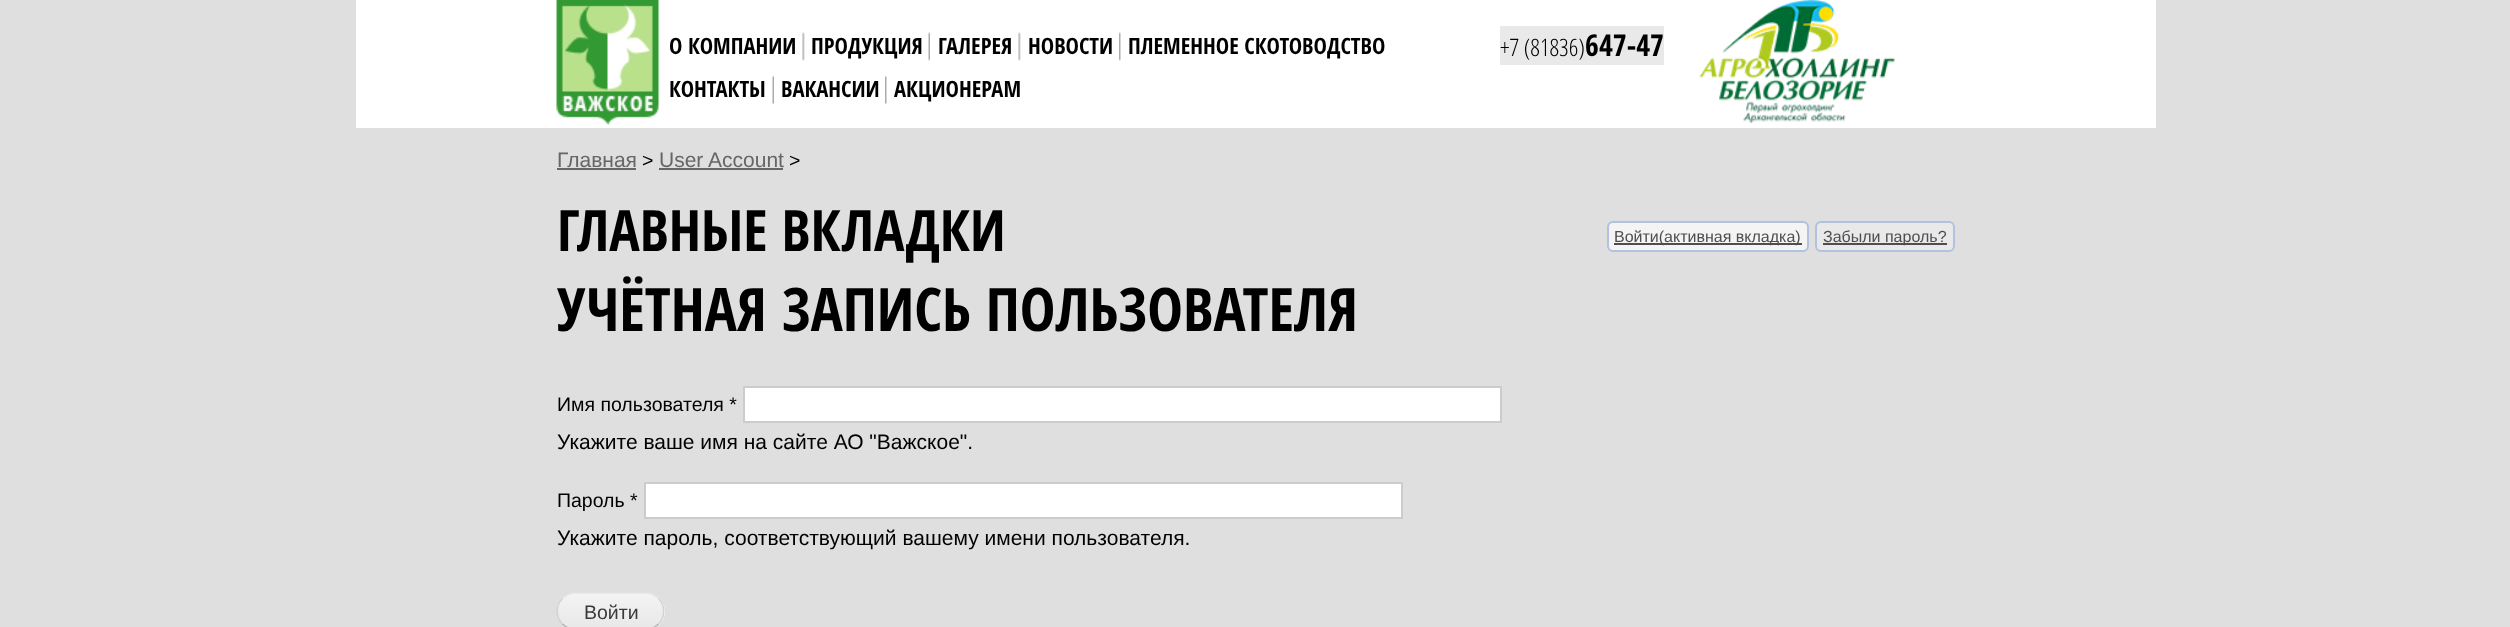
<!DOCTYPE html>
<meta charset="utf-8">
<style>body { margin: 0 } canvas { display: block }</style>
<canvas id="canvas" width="2510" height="627"></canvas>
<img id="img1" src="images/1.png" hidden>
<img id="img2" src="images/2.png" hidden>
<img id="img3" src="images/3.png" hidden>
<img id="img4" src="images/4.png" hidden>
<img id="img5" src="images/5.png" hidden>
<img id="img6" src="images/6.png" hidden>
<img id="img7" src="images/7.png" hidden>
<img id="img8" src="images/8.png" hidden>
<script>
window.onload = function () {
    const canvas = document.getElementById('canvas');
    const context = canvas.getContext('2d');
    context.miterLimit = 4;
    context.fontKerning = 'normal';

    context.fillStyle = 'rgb(223, 223, 223)';
    context.fillRect(0, 0, 2510, 627);
    context.fillStyle = 'rgb(255, 255, 255)';
    context.fillRect(356, 0, 1800, 128);
    context.drawImage(document.getElementById('img1'), 556, 0, 104, 125);
    context.drawImage(document.getElementById('img2'), 802, 32, 3, 29);
    context.drawImage(document.getElementById('img3'), 928, 32, 2, 29);
    context.drawImage(document.getElementById('img2'), 1018, 32, 3, 29);
    context.drawImage(document.getElementById('img4'), 1119, 32, 2, 29);
    context.drawImage(document.getElementById('img5'), 772, 76, 2, 28);
    context.drawImage(document.getElementById('img6'), 885, 76, 2, 28);
    context.fillStyle = 'rgb(233, 233, 233)';
    context.fillRect(1500, 26, 164, 39);
    context.drawImage(document.getElementById('img7'), 1699, 0, 196, 123);
    context.fillStyle = 'rgb(102, 102, 102)';
    context.fillRect(557, 168, 79, 2);
    context.fillRect(659, 168, 124, 2);
    context.fillStyle = 'rgb(244, 244, 244)';
    context.beginPath();
    context.roundRect(1608, 222, 200, 29, 5);
    context.fill();
    context.strokeStyle = 'rgb(178, 193, 223)';
    context.lineWidth = 2;
    context.stroke();
    context.fillStyle = 'rgb(78, 78, 78)';
    context.fillRect(1614, 243, 188, 2);
    context.fillStyle = 'rgb(233, 233, 233)';
    context.beginPath();
    context.roundRect(1816, 222, 138, 29, 5);
    context.fill();
    context.stroke();
    context.fillStyle = 'rgb(78, 78, 78)';
    context.fillRect(1823, 243, 124, 2);
    context.fillStyle = 'rgb(255, 255, 255)';
    context.beginPath();
    context.rect(744, 387, 757, 35);
    context.fill();
    context.strokeStyle = 'rgb(204, 204, 204)';
    context.stroke();
    context.beginPath();
    context.rect(645, 483, 757, 35);
    context.fill();
    context.stroke();
    context.beginPath();
    context.roundRect(557, 593, 108, 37, 18.5);
    context.fill();
    context.drawImage(document.getElementById('img8'), 557, 594, 108, 33);
    context.beginPath();
    context.moveTo(562.5, 598.5);
    context.bezierCurveTo(566, 595, 570.5, 593, 575, 593);
    context.lineTo(646, 593);
    context.bezierCurveTo(650.5, 593, 655, 595, 658.5, 598.5);
    context.strokeStyle = 'rgb(228, 228, 228)';
    context.lineWidth = 1.5;
    context.stroke();
    context.beginPath();
    context.moveTo(658.5, 598.5);
    context.bezierCurveTo(665.5, 605.5, 665.5, 617, 658.5, 624);
    context.strokeStyle = 'rgb(210, 210, 210)';
    context.stroke();
    context.beginPath();
    context.moveTo(658.5, 624);
    context.bezierCurveTo(655, 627.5, 650.5, 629, 646, 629);
    context.lineTo(575, 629);
    context.bezierCurveTo(570.5, 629, 566, 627.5, 562.5, 624);
    context.strokeStyle = 'rgb(180, 180, 180)';
    context.stroke();
    context.beginPath();
    context.moveTo(562.5, 624);
    context.bezierCurveTo(555.5, 617, 555.5, 605.5, 562.5, 598.5);
    context.strokeStyle = 'rgb(210, 210, 210)';
    context.stroke();
    context.font = 'bold 22.5px Open Sans Condensed';
    context.fillStyle = 'rgb(0, 0, 0)';
    context.fillText('О КОМПАНИИ', 669, 54);
    context.fillText('ПРОДУКЦИЯ', 811, 54);
    context.fillText('ГАЛЕРЕЯ', 938, 54);
    context.fillText('НОВОСТИ', 1028, 54);
    context.fillText('ПЛЕМЕННОЕ СКОТОВОДСТВО', 1128, 54);
    context.fillText('КОНТАКТЫ', 669, 97);
    context.fillText('ВАКАНСИИ', 781, 97);
    context.fillText('АКЦИОНЕРАМ', 894, 97);
    context.font = '300 24px Open Sans';
    context.fillText('+7 (81836)', 1500, 56);
    context.font = 'bold 30px Open Sans Condensed';
    context.fillText('647-47', 1585, 56);
    context.font = '21px Liberation Sans';
    context.fillStyle = 'rgb(102, 102, 102)';
    context.fillText('Главная', 557, 167);
    context.font = '19.5px Liberation Sans';
    context.fillStyle = 'rgb(0, 0, 0)';
    context.fillText('>', 642, 167);
    context.font = '21px Liberation Sans';
    context.fillStyle = 'rgb(102, 102, 102)';
    context.fillText('User Account', 659, 167);
    context.font = '19.5px Liberation Sans';
    context.fillStyle = 'rgb(0, 0, 0)';
    context.fillText('>', 789, 167);
    context.font = 'bold 57px Open Sans Condensed';
    context.fillText('ГЛАВНЫЕ ВКЛАДКИ', 557, 251);
    context.font = '16px Liberation Sans';
    context.fillStyle = 'rgb(78, 78, 78)';
    context.fillText('Войти(активная вкладка)', 1614, 242);
    context.fillText('Забыли пароль?', 1823, 242);
    context.font = 'bold 60px Open Sans Condensed';
    context.fillStyle = 'rgb(0, 0, 0)';
    context.fillText('УЧЁТНАЯ ЗАПИСЬ ПОЛЬЗОВАТЕЛЯ', 557, 331);
    context.font = '19.5px Liberation Sans';
    context.fillText('Имя пользователя *', 557, 411);
    context.font = '21px Liberation Sans';
    context.fillText('Укажите ваше имя на сайте АО "Важское".', 557, 449);
    context.font = '19.5px Liberation Sans';
    context.fillText('Пароль *', 557, 507);
    context.font = '21px Liberation Sans';
    context.fillText('Укажите пароль, соответствующий вашему имени пользователя.', 557, 545);
    context.font = '19.5px Liberation Sans';
    context.fillStyle = 'rgb(58, 58, 58)';
    context.fillText('Войти', 584, 619);
};
</script>
